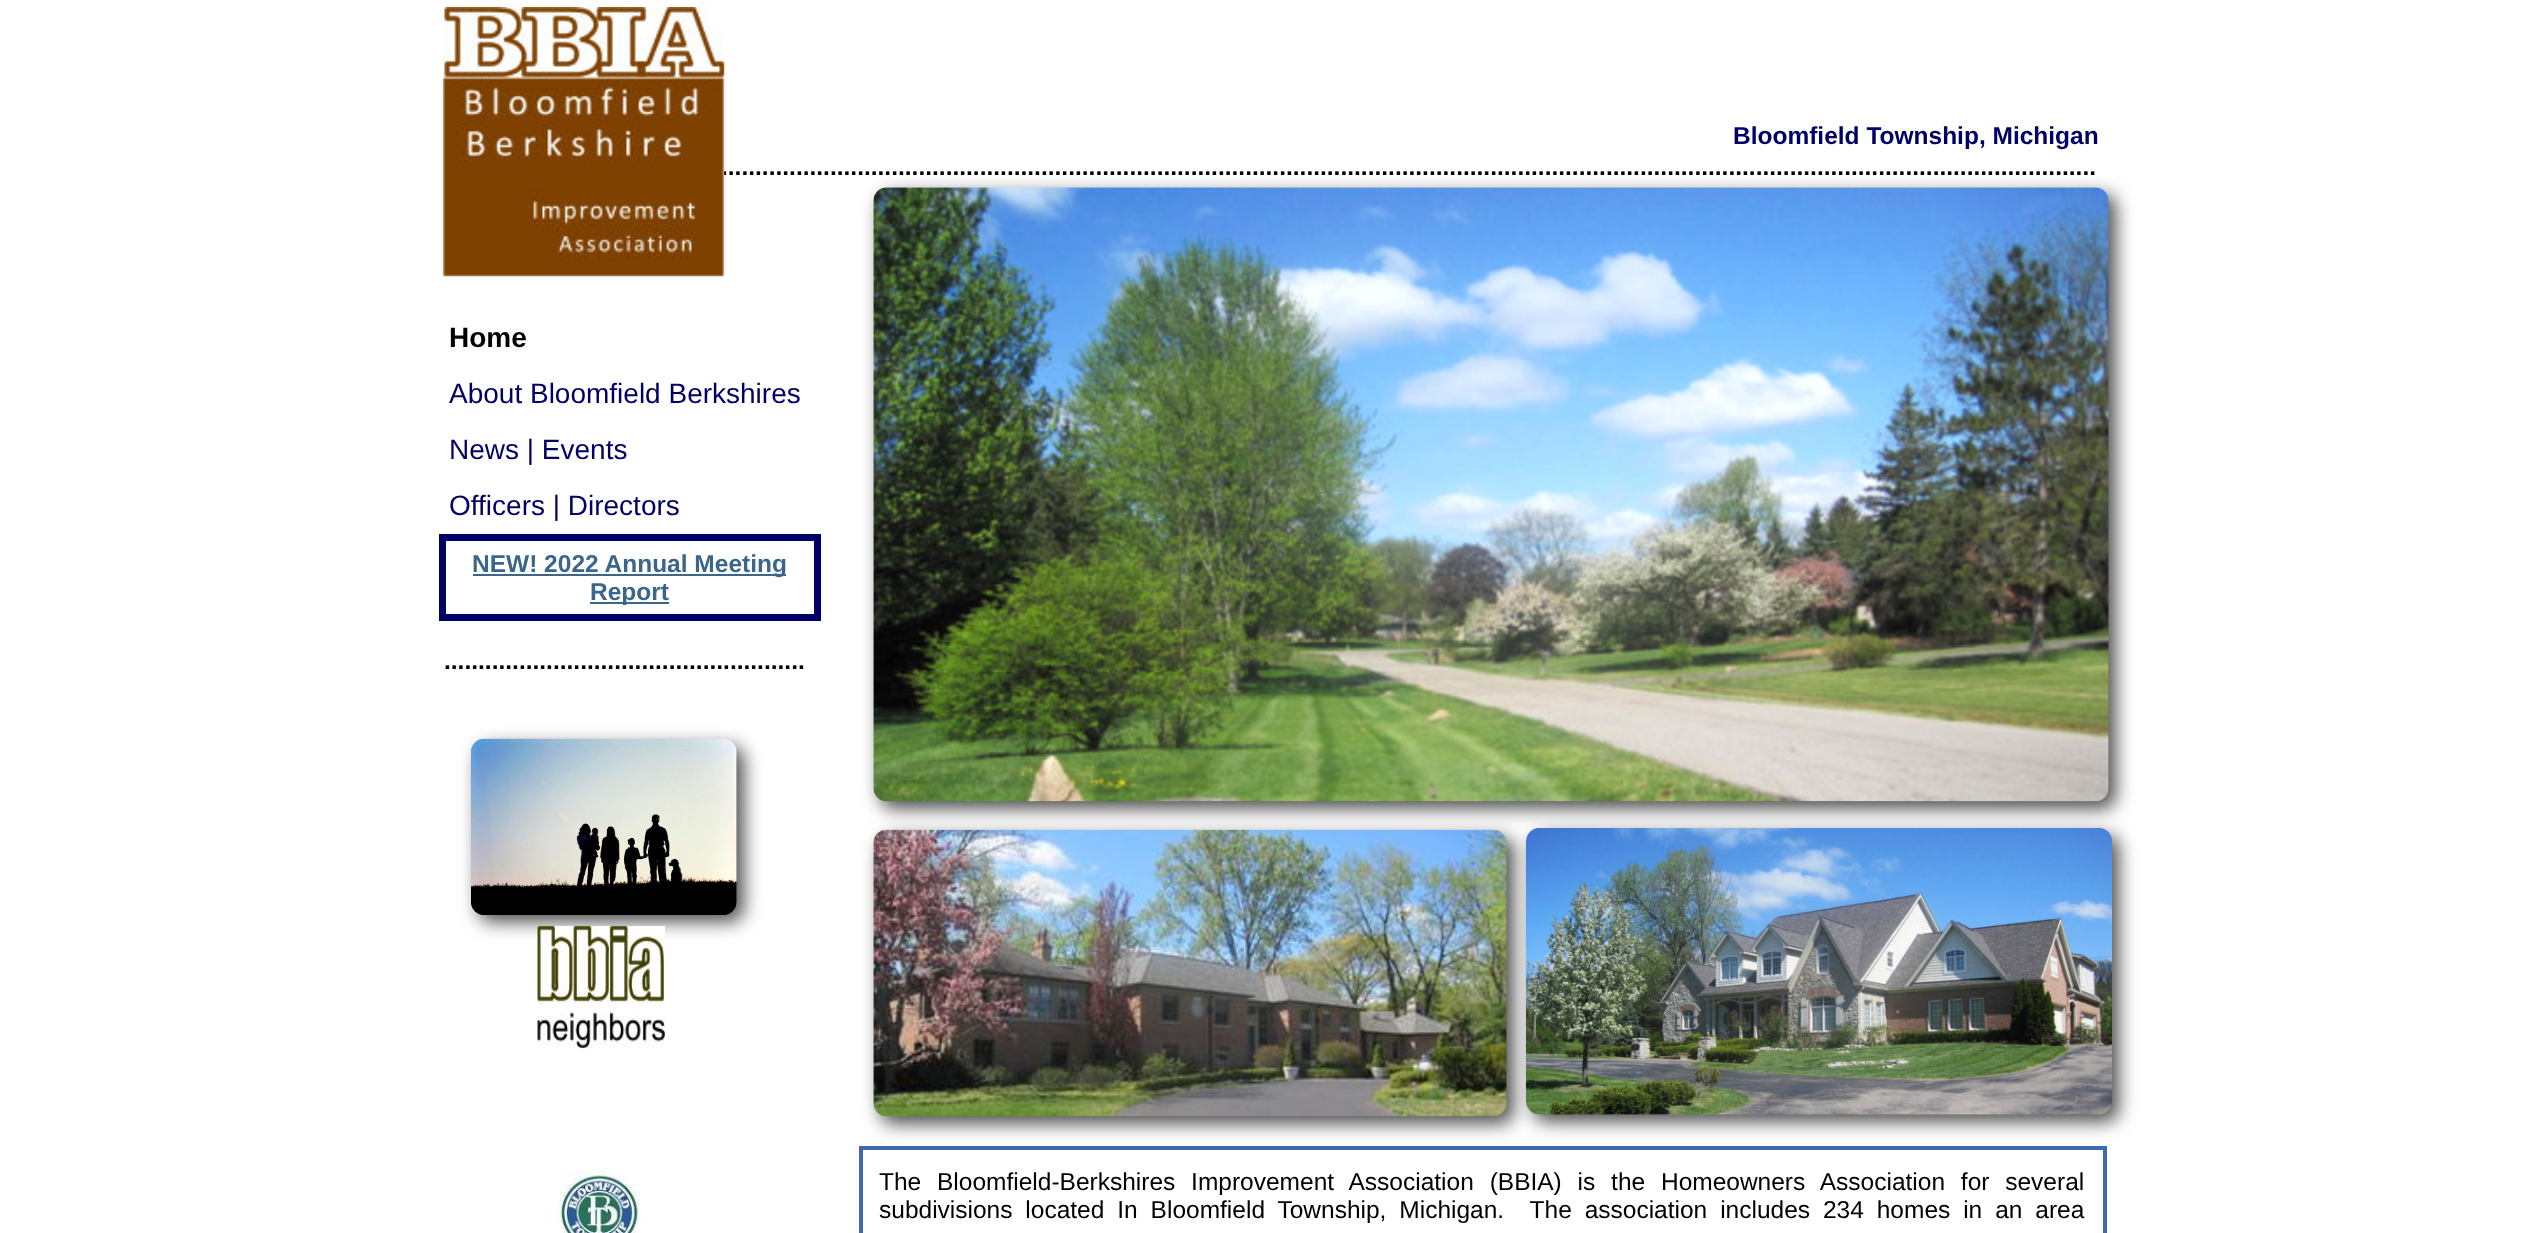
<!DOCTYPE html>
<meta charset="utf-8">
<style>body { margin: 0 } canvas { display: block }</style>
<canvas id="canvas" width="2528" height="1233"></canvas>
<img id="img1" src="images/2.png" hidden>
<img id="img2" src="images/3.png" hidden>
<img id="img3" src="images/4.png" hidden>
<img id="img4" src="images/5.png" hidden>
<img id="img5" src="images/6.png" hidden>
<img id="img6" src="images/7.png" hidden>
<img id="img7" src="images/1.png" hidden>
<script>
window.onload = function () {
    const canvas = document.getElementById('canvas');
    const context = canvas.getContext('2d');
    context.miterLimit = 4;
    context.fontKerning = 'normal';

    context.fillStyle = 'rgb(255, 255, 255)';
    context.fillRect(0, 0, 2528, 1233);
    context.fillStyle = 'rgb(80, 80, 80)';
    context.filter = 'blur(9px)';
    context.beginPath();
    context.roundRect(880, 194, 1236, 615, 14);
    context.fill();
    context.filter = 'none';
    context.drawImage(document.getElementById('img1'), 873, 187, 1236, 615);
    context.strokeStyle = 'rgb(0, 0, 102)';
    context.lineWidth = 7;
    context.strokeRect(442.5, 537.5, 375, 80);
    context.fillStyle = 'rgb(58, 102, 139)';
    context.fillRect(473, 574, 313, 2);
    context.fillRect(590, 602, 79, 2);
    context.fillStyle = 'rgb(80, 80, 80)';
    context.filter = 'blur(9px)';
    context.beginPath();
    context.roundRect(478, 746, 266, 176, 14);
    context.fill();
    context.filter = 'none';
    context.drawImage(document.getElementById('img2'), 471, 738, 266, 177);
    context.strokeStyle = 'rgb(64, 106, 176)';
    context.lineWidth = 4;
    context.strokeRect(861, 1148, 1244, 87);
    context.filter = 'blur(9px)';
    context.beginPath();
    context.roundRect(880, 837, 634, 287, 14);
    context.fill();
    context.filter = 'none';
    context.drawImage(document.getElementById('img3'), 873, 829, 634, 288);
    context.filter = 'blur(9px)';
    context.beginPath();
    context.roundRect(1533, 835, 586, 287, 14);
    context.fill();
    context.filter = 'none';
    context.drawImage(document.getElementById('img4'), 1526, 828, 586, 287);
    context.drawImage(document.getElementById('img5'), 537, 925, 128, 124);
    context.drawImage(document.getElementById('img6'), 556, 1169, 85, 64);
    context.font = 'bold 24.5px Liberation Sans';
    context.fillStyle = 'rgb(0, 0, 102)';
    context.fillText('Bloomfield Township, Michigan', 1733, 144);
    context.fillStyle = 'rgb(0, 0, 0)';
    context.fillText('..........................................................................................................................................................................................................', 721, 175);
    context.drawImage(document.getElementById('img7'), 442, 7, 283, 270);
    context.font = 'bold 28px Liberation Sans';
    context.fillText('Home', 449, 347);
    context.font = '28px Liberation Sans';
    context.fillStyle = 'rgb(0, 0, 102)';
    context.fillText('About Bloomfield Berkshires', 449, 403);
    context.fillText('News | Events', 449, 459);
    context.fillText('Officers | Directors', 449, 515);
    context.font = 'bold 24.5px Liberation Sans';
    context.fillStyle = 'rgb(58, 102, 139)';
    context.fillText('NEW! 2022 Annual Meeting', 472, 572);
    context.fillText('Report', 590, 600);
    context.fillStyle = 'rgb(0, 0, 0)';
    context.fillText('.....................................................', 444, 669);
    context.wordSpacing = '9px';
    context.font = '24.5px Liberation Sans';
    context.fillText('The Bloomfield-Berkshires Improvement Association (BBIA) is the Homeowners Association for several', 879, 1190);
    context.wordSpacing = '6.1px';
    context.fillText('subdivisions located In Bloomfield Township, Michigan.  The association includes 234 homes in an area', 879, 1218);
};
</script>
